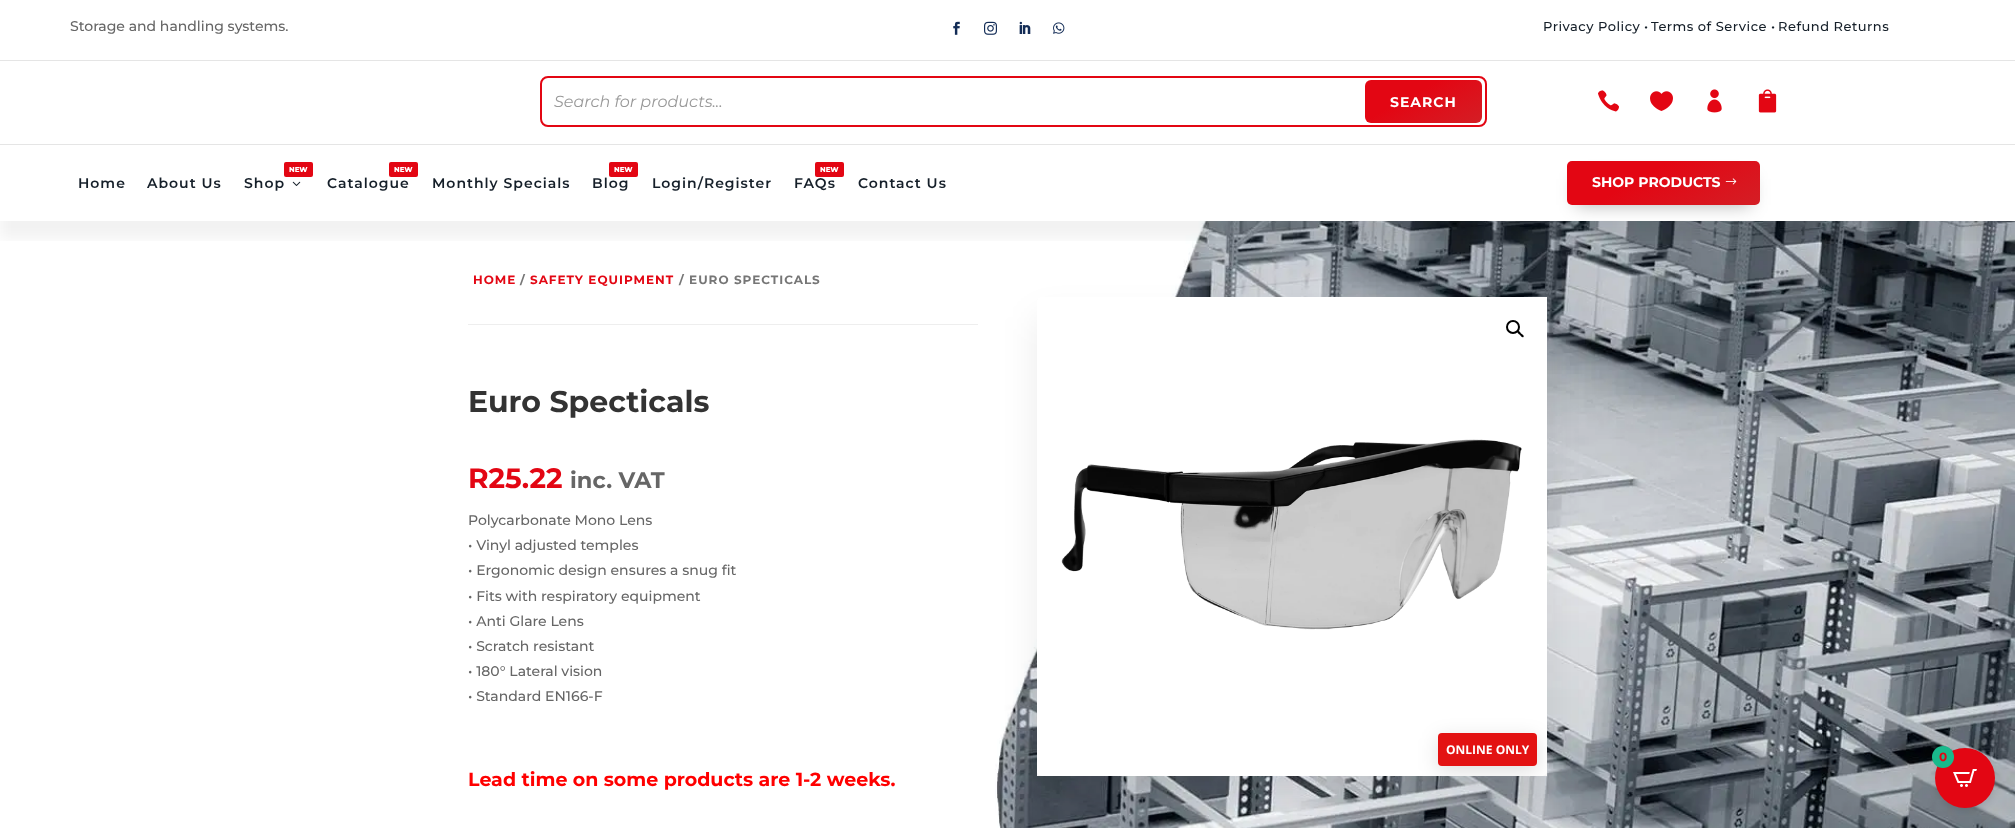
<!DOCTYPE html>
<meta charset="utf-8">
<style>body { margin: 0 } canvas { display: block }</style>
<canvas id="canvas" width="2015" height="828"></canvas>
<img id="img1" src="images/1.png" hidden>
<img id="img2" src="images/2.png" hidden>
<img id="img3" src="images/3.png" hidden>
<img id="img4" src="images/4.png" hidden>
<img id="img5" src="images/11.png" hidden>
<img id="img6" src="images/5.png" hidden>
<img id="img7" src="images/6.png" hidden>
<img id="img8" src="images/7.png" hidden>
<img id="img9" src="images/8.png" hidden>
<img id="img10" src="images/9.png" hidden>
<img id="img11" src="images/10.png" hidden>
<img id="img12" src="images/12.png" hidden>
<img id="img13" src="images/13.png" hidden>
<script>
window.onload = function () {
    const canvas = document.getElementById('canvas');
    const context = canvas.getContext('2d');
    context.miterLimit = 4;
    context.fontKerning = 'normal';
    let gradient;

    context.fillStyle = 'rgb(255, 255, 255)';
    context.fillRect(0, 0, 2015, 828);
    context.fillStyle = 'rgb(229, 229, 229)';
    context.fillRect(0, 60, 2015, 1);
    context.drawImage(document.getElementById('img1'), 953, 21, 7, 14);
    context.drawImage(document.getElementById('img2'), 984, 21, 13, 14);
    context.drawImage(document.getElementById('img3'), 1019, 21, 12, 13);
    context.drawImage(document.getElementById('img4'), 1053, 22, 12, 12);
    context.drawImage(document.getElementById('img5'), 995, 221, 1020, 607);
    context.save();
    context.beginPath();
    context.rect(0, 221, 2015, 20);
    context.clip();
    context.fillStyle = 'rgba(0, 0, 0, 0.05)';
    context.filter = 'blur(7px)';
    context.beginPath();
    context.rect(0, 163, 2015, 76);
    context.fill();
    context.filter = 'none';
    context.restore();
    context.fillRect(0, 144, 2015, 1);
    context.beginPath();
    context.roundRect(541, 77, 945, 49, 7);
    context.strokeStyle = 'rgb(227, 6, 19)';
    context.lineWidth = 2;
    context.stroke();
    gradient = context.createLinearGradient(1401, 60, 1446, 143);
    gradient.addColorStop(0.38, 'rgb(227, 6, 19)');
    gradient.addColorStop(1, 'rgb(212, 30, 37)');
    context.fillStyle = gradient;
    context.beginPath();
    context.roundRect(1365, 80, 117, 43, 6);
    context.fill();
    context.drawImage(document.getElementById('img6'), 1598, 90, 21, 22);
    context.drawImage(document.getElementById('img7'), 1650, 91, 23, 20);
    context.drawImage(document.getElementById('img8'), 1707, 89, 15, 24);
    context.drawImage(document.getElementById('img9'), 1758, 89, 19, 24);
    context.fillStyle = 'rgb(227, 6, 19)';
    context.beginPath();
    context.roundRect(284, 162, 29, 15, 2);
    context.fill();
    context.drawImage(document.getElementById('img10'), 292, 181, 9, 5);
    context.beginPath();
    context.roundRect(389, 162, 29, 15, 2);
    context.fill();
    context.beginPath();
    context.roundRect(609, 162, 29, 15, 2);
    context.fill();
    context.beginPath();
    context.roundRect(815, 162, 29, 15, 2);
    context.fill();
    context.fillStyle = 'rgba(0, 0, 0, 0.3)';
    context.filter = 'blur(9px)';
    context.beginPath();
    context.rect(1576, 179, 175, 26);
    context.fill();
    context.filter = 'none';
    gradient = context.createLinearGradient(1631, 125, 1696, 241);
    gradient.addColorStop(0.38, 'rgb(227, 6, 19)');
    gradient.addColorStop(1, 'rgb(212, 30, 37)');
    context.fillStyle = gradient;
    context.beginPath();
    context.roundRect(1567, 161, 193, 44, 5);
    context.fill();
    context.drawImage(document.getElementById('img11'), 1725, 178, 12, 7);
    context.fillStyle = 'rgb(238, 238, 238)';
    context.fillRect(468, 324, 510, 1);
    context.fillStyle = 'rgb(255, 255, 255)';
    context.fillRect(1037, 297, 510, 479);
    context.fillStyle = 'rgba(0, 0, 0, 0.08)';
    context.filter = 'blur(17.5px)';
    context.beginPath();
    context.roundRect(1037, 317, 510, 479, 5);
    context.fill();
    context.filter = 'none';
    context.fillStyle = 'rgb(255, 255, 255)';
    context.beginPath();
    context.roundRect(1037, 297, 510, 479, 5);
    context.fill();
    context.beginPath();
    context.arc(1513, 327, 6, 0, 2 * Math.PI);
    context.strokeStyle = 'rgb(0, 0, 0)';
    context.stroke();
    context.fillStyle = 'rgb(0, 0, 0)';
    context.beginPath();
    context.moveTo(1517.5, 331.5);
    context.bezierCurveTo(1519, 330, 1520.5, 333, 1521, 333.5);
    context.bezierCurveTo(1522, 334, 1524.5, 335.5, 1523.5, 337);
    context.bezierCurveTo(1522, 338, 1520.5, 335.5, 1520, 335);
    context.bezierCurveTo(1519, 334, 1516.5, 332.5, 1517.5, 331.5);
    context.closePath();
    context.fill();
    context.drawImage(document.getElementById('img12'), 1061, 439, 461, 191);
    context.save();
    context.beginPath();
    context.roundRect(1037, 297, 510, 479, 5);
    context.clip();
    context.fillStyle = 'rgba(0, 0, 0, 0.13)';
    context.filter = 'blur(10px)';
    context.beginPath();
    context.roundRect(1438, 738, 99, 33, 4);
    context.fill();
    context.filter = 'none';
    context.restore();
    context.fillStyle = 'rgb(227, 18, 18)';
    context.beginPath();
    context.roundRect(1438, 733, 99, 33, 4);
    context.fill();
    context.fillStyle = 'rgba(0, 0, 0, 0.1)';
    context.filter = 'blur(3.5px)';
    context.beginPath();
    context.roundRect(1935, 752, 60, 60, 30);
    context.fill();
    context.filter = 'none';
    context.fillStyle = 'rgb(227, 6, 19)';
    context.beginPath();
    context.arc(1965, 778, 30, 0, 2 * Math.PI);
    context.fill();
    context.fillStyle = 'rgb(25, 186, 140)';
    context.beginPath();
    context.arc(1943, 757, 11, 0, 2 * Math.PI);
    context.fill();
    context.drawImage(document.getElementById('img13'), 1953, 769, 24, 18);
    context.font = '500 14px Montserrat';
    context.fillStyle = 'rgb(102, 102, 102)';
    context.fillText('Storage and handling systems.', 70, 31);
    context.letterSpacing = '0.5px';
    context.font = '500 13px Montserrat';
    context.fillStyle = 'rgb(21, 31, 41)';
    context.fillText('Privacy Policy', 1543, 31);
    context.letterSpacing = '0px';
    context.fillText('•', 1644, 31);
    context.letterSpacing = '0.5px';
    context.fillText('Terms of Service', 1651, 31);
    context.letterSpacing = '0px';
    context.fillText('•', 1771, 31);
    context.letterSpacing = '0.5px';
    context.fillText('Refund Returns', 1778, 31);
    context.letterSpacing = '0px';
    context.font = 'italic 16px Montserrat';
    context.fillStyle = 'rgb(153, 153, 153)';
    context.fillText('Search for products...', 554, 107);
    context.letterSpacing = '1px';
    context.font = 'bold 14px Montserrat';
    context.fillStyle = 'rgb(255, 255, 255)';
    context.fillText('SEARCH', 1390, 107);
    context.font = '600 14px Montserrat';
    context.fillStyle = 'rgb(21, 31, 41)';
    context.fillText('Home', 78, 188);
    context.fillText('About Us', 147, 188);
    context.letterSpacing = '0px';
    context.font = '800 7px Montserrat';
    context.fillStyle = 'rgb(255, 255, 255)';
    context.fillText('NEW', 289, 172);
    context.letterSpacing = '1px';
    context.font = '600 14px Montserrat';
    context.fillStyle = 'rgb(21, 31, 41)';
    context.fillText('Shop', 244, 188);
    context.letterSpacing = '0px';
    context.font = '800 7px Montserrat';
    context.fillStyle = 'rgb(255, 255, 255)';
    context.fillText('NEW', 394, 172);
    context.letterSpacing = '1px';
    context.font = '600 14px Montserrat';
    context.fillStyle = 'rgb(21, 31, 41)';
    context.fillText('Catalogue', 327, 188);
    context.fillText('Monthly Specials', 432, 188);
    context.letterSpacing = '0px';
    context.font = '800 7px Montserrat';
    context.fillStyle = 'rgb(255, 255, 255)';
    context.fillText('NEW', 614, 172);
    context.letterSpacing = '1px';
    context.font = '600 14px Montserrat';
    context.fillStyle = 'rgb(21, 31, 41)';
    context.fillText('Blog', 592, 188);
    context.fillText('Login/Register', 652, 188);
    context.letterSpacing = '0px';
    context.font = '800 7px Montserrat';
    context.fillStyle = 'rgb(255, 255, 255)';
    context.fillText('NEW', 820, 172);
    context.letterSpacing = '1px';
    context.font = '600 14px Montserrat';
    context.fillStyle = 'rgb(21, 31, 41)';
    context.fillText('FAQs', 794, 188);
    context.fillText('Contact Us', 858, 188);
    context.letterSpacing = '0px';
    context.font = 'bold 14px Montserrat';
    context.fillStyle = 'rgb(255, 255, 255)';
    context.fillText('SHOP PRODUCTS', 1592, 187);
    context.letterSpacing = '1px';
    context.font = 'bold 12px Montserrat';
    context.fillStyle = 'rgb(227, 6, 19)';
    context.fillText('HOME', 473, 284);
    context.fillStyle = 'rgb(118, 118, 118)';
    context.fillText('/', 520, 284);
    context.fillStyle = 'rgb(227, 6, 19)';
    context.fillText('SAFETY EQUIPMENT', 530, 284);
    context.fillStyle = 'rgb(118, 118, 118)';
    context.fillText('/ EURO SPECTICALS', 679, 284);
    context.letterSpacing = '0px';
    context.font = 'bold 30px Montserrat';
    context.fillStyle = 'rgb(51, 51, 51)';
    context.fillText('Euro Specticals', 468, 412);
    context.font = 'bold 28px Montserrat';
    context.fillStyle = 'rgb(227, 6, 19)';
    context.fillText('R25.22', 468, 488);
    context.font = 'bold 22.5px Montserrat';
    context.fillStyle = 'rgb(102, 102, 102)';
    context.fillText('inc. VAT', 570, 488);
    context.font = '500 14px Montserrat';
    context.fillText('Polycarbonate Mono Lens', 468, 525);
    context.fillText('• Vinyl adjusted temples', 468, 550);
    context.fillText('• Ergonomic design ensures a snug fit', 468, 575);
    context.fillText('• Fits with respiratory equipment', 468, 601);
    context.fillText('• Anti Glare Lens', 468, 626);
    context.fillText('• Scratch resistant', 468, 651);
    context.fillText('• 180° Lateral vision', 468, 676);
    context.fillText('• Standard EN166-F', 468, 701);
    context.font = 'bold 19px Montserrat';
    context.fillStyle = 'rgb(255, 0, 0)';
    context.fillText('Lead time on some products are 1-2 weeks.', 468, 786);
    context.font = 'bold 12px Open Sans';
    context.fillStyle = 'rgb(255, 255, 255)';
    context.fillText('ONLINE ONLY', 1446, 754);
    context.font = 'bold 12px Montserrat';
    context.fillStyle = 'rgb(227, 6, 19)';
    context.fillText('0', 1939, 761);
};
</script>
